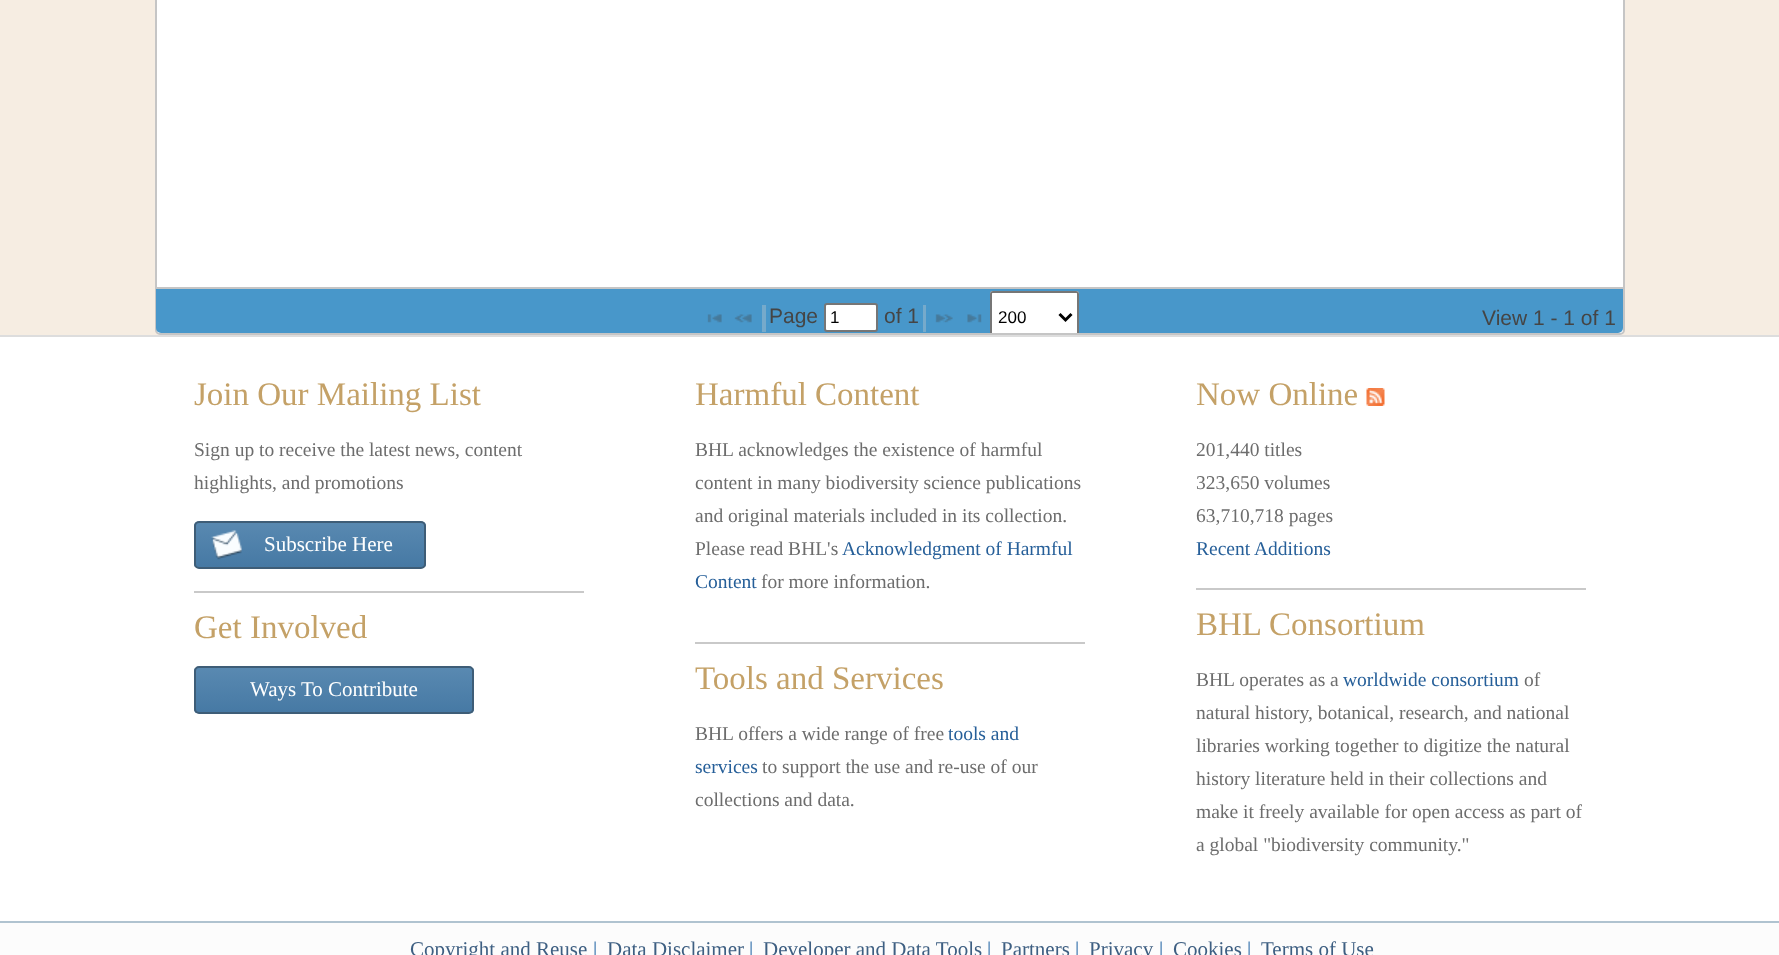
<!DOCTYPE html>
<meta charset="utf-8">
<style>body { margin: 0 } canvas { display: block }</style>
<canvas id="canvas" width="1779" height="955"></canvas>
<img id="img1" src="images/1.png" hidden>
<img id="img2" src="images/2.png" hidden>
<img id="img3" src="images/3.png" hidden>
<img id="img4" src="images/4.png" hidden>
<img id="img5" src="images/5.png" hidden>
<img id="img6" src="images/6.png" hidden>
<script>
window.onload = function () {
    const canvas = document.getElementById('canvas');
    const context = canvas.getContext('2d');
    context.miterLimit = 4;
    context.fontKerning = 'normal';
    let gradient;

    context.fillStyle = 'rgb(246, 237, 226)';
    context.fillRect(0, 0, 1779, 955);
    context.fillStyle = 'rgb(255, 255, 255)';
    context.beginPath();
    context.roundRect(156, -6, 1468, 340, 4);
    context.fill();
    context.strokeStyle = 'rgb(197, 197, 197)';
    context.lineWidth = 2;
    context.stroke();
    context.fillStyle = 'rgb(72, 151, 202)';
    context.beginPath();
    context.roundRect(156, 287, 1467, 46, [0, 0, 5, 5]);
    context.fill();
    context.fillStyle = 'rgb(197, 197, 197)';
    context.fillRect(156, 287, 1467, 2);
    context.drawImage(document.getElementById('img1'), 707, 314, 15, 9);
    context.drawImage(document.getElementById('img2'), 734, 314, 18, 9);
    context.fillStyle = 'rgb(118, 170, 203)';
    context.fillRect(762, 305, 4, 27);
    context.fillStyle = 'rgb(255, 255, 255)';
    context.beginPath();
    context.roundRect(825, 304, 52, 27, 2);
    context.fill();
    context.strokeStyle = 'rgb(118, 118, 118)';
    context.stroke();
    context.fillStyle = 'rgb(118, 170, 203)';
    context.fillRect(923, 305, 3, 27);
    context.drawImage(document.getElementById('img3'), 935, 314, 18, 9);
    context.drawImage(document.getElementById('img4'), 967, 314, 15, 9);
    context.fillStyle = 'rgb(255, 255, 255)';
    context.beginPath();
    context.roundRect(990, 291, 89, 42, [3, 3, 0, 0]);
    context.fill();
    context.fillStyle = 'rgb(118, 118, 118)';
    context.beginPath();
    context.moveTo(993, 291);
    context.bezierCurveTo(991, 291, 990, 292, 990, 294);
    context.lineTo(990, 333);
    context.lineTo(992, 333);
    context.lineTo(992, 294);
    context.bezierCurveTo(992, 293, 992, 293, 993, 293);
    context.lineTo(1076, 293);
    context.bezierCurveTo(1077, 293, 1077, 293, 1077, 294);
    context.lineTo(1077, 333);
    context.lineTo(1079, 333);
    context.lineTo(1079, 294);
    context.bezierCurveTo(1079, 292, 1078, 291, 1076, 291);
    context.closePath();
    context.fill();
    context.beginPath();
    context.moveTo(1059.5, 314);
    context.lineTo(1065.5, 320);
    context.lineTo(1071.5, 314);
    context.strokeStyle = 'rgb(0, 0, 0)';
    context.lineWidth = 3;
    context.stroke();
    context.fillStyle = 'rgb(255, 255, 255)';
    context.fillRect(0, 337, 1779, 584);
    context.fillStyle = 'rgb(221, 221, 221)';
    context.fillRect(0, 335, 1779, 2);
    context.fillStyle = 'rgb(201, 201, 201)';
    context.fillRect(194, 591, 390, 2);
    context.save();
    context.beginPath();
    context.roundRect(194, 521, 232, 48, 5);
    context.clip();
    gradient = context.createLinearGradient(195, 522, 195, 567);
    gradient.addColorStop(0, 'rgb(89, 137, 177)');
    gradient.addColorStop(1, 'rgb(70, 121, 164)');
    context.fillStyle = gradient;
    context.fillRect(194, 522, 232, 45);
    context.restore();
    context.beginPath();
    context.roundRect(195, 522, 230, 46, 4);
    context.strokeStyle = 'rgb(62, 93, 119)';
    context.lineWidth = 2;
    context.stroke();
    context.drawImage(document.getElementById('img5'), 211, 530, 31, 30);
    context.save();
    context.beginPath();
    context.roundRect(194, 666, 280, 48, 5);
    context.clip();
    gradient = context.createLinearGradient(195, 668, 195, 713);
    gradient.addColorStop(0, 'rgb(89, 137, 177)');
    gradient.addColorStop(1, 'rgb(70, 121, 164)');
    context.fillStyle = gradient;
    context.fillRect(194, 668, 280, 45);
    context.restore();
    context.beginPath();
    context.roundRect(195, 667, 278, 46, 4);
    context.stroke();
    context.fillRect(695, 642, 390, 2);
    context.drawImage(document.getElementById('img6'), 1366, 388, 19, 18);
    context.fillRect(1196, 588, 390, 2);
    context.fillStyle = 'rgb(252, 252, 252)';
    context.fillRect(0, 923, 1779, 32);
    context.fillStyle = 'rgb(176, 195, 208)';
    context.fillRect(0, 921, 1779, 2);
    context.font = '21px Liberation Sans';
    context.fillStyle = 'rgb(69, 69, 69)';
    context.fillText('Page', 769, 323);
    context.font = '17px Liberation Sans';
    context.fillStyle = 'rgb(0, 0, 0)';
    context.fillText('1', 830, 323);
    context.font = '21px Liberation Sans';
    context.fillStyle = 'rgb(69, 69, 69)';
    context.fillText('of 1', 884, 323);
    context.font = '17px Liberation Sans';
    context.fillStyle = 'rgb(0, 0, 0)';
    context.fillText('200', 998, 323);
    context.font = '21px Liberation Sans';
    context.fillStyle = 'rgb(69, 69, 69)';
    context.fillText('View 1 - 1 of 1', 1482, 325);
    context.font = '33px Liberation Serif';
    context.fillStyle = 'rgb(196, 161, 103)';
    context.fillText('Join Our Mailing List', 194, 405);
    context.font = '19.5px Liberation Serif';
    context.fillStyle = 'rgb(109, 109, 109)';
    context.fillText('Sign up to receive the latest news, content', 194, 456);
    context.fillText('highlights, and promotions', 194, 489);
    context.font = '21px Liberation Serif';
    context.fillStyle = 'rgb(255, 255, 255)';
    context.fillText('Subscribe Here', 264, 551);
    context.font = '33px Liberation Serif';
    context.fillStyle = 'rgb(196, 161, 103)';
    context.fillText('Get Involved', 194, 638);
    context.font = '21px Liberation Serif';
    context.fillStyle = 'rgb(255, 255, 255)';
    context.fillText('Ways To Contribute', 250, 696);
    context.font = '33px Liberation Serif';
    context.fillStyle = 'rgb(196, 161, 103)';
    context.fillText('Harmful Content', 695, 405);
    context.font = '19.5px Liberation Serif';
    context.fillStyle = 'rgb(109, 109, 109)';
    context.fillText('BHL acknowledges the existence of harmful', 695, 456);
    context.fillText('content in many biodiversity science publications', 695, 489);
    context.fillText('and original materials included in its collection.', 695, 522);
    context.fillText('Please read BHL\'s', 695, 555);
    context.fillStyle = 'rgb(38, 95, 153)';
    context.fillText('Acknowledgment of Harmful', 842, 555);
    context.fillText('Content', 695, 588);
    context.fillStyle = 'rgb(109, 109, 109)';
    context.fillText('for more information.', 761, 588);
    context.font = '33px Liberation Serif';
    context.fillStyle = 'rgb(196, 161, 103)';
    context.fillText('Tools and Services', 695, 689);
    context.font = '19.5px Liberation Serif';
    context.fillStyle = 'rgb(109, 109, 109)';
    context.fillText('BHL offers a wide range of free', 695, 740);
    context.fillStyle = 'rgb(38, 95, 153)';
    context.fillText('tools and', 948, 740);
    context.fillText('services', 695, 773);
    context.fillStyle = 'rgb(109, 109, 109)';
    context.fillText('to support the use and re-use of our', 762, 773);
    context.fillText('collections and data.', 695, 806);
    context.font = '33px Liberation Serif';
    context.fillStyle = 'rgb(196, 161, 103)';
    context.fillText('Now Online', 1196, 405);
    context.font = '19.5px Liberation Serif';
    context.fillStyle = 'rgb(109, 109, 109)';
    context.fillText('201,440 titles', 1196, 456);
    context.fillText('323,650 volumes', 1196, 489);
    context.fillText('63,710,718 pages', 1196, 522);
    context.fillStyle = 'rgb(38, 95, 153)';
    context.fillText('Recent Additions', 1196, 555);
    context.font = '33px Liberation Serif';
    context.fillStyle = 'rgb(196, 161, 103)';
    context.fillText('BHL Consortium', 1196, 635);
    context.font = '19.5px Liberation Serif';
    context.fillStyle = 'rgb(109, 109, 109)';
    context.fillText('BHL operates as a', 1196, 686);
    context.fillStyle = 'rgb(38, 95, 153)';
    context.fillText('worldwide consortium', 1343, 686);
    context.fillStyle = 'rgb(109, 109, 109)';
    context.fillText('of', 1524, 686);
    context.fillText('natural history, botanical, research, and national', 1196, 719);
    context.fillText('libraries working together to digitize the natural', 1196, 752);
    context.fillText('history literature held in their collections and', 1196, 785);
    context.fillText('make it freely available for open access as part of', 1196, 818);
    context.fillText('a global "biodiversity community."', 1196, 851);
    context.font = '21px Liberation Serif';
    context.fillStyle = 'rgb(62, 95, 130)';
    context.fillText('Copyright and Reuse', 410, 956);
    context.fillStyle = 'rgb(42, 107, 168)';
    context.fillText('|', 593, 956);
    context.fillStyle = 'rgb(62, 95, 130)';
    context.fillText('Data Disclaimer', 607, 956);
    context.fillStyle = 'rgb(42, 107, 168)';
    context.fillText('|', 749, 956);
    context.fillStyle = 'rgb(62, 95, 130)';
    context.fillText('Developer and Data Tools', 763, 956);
    context.fillStyle = 'rgb(42, 107, 168)';
    context.fillText('|', 987, 956);
    context.fillStyle = 'rgb(62, 95, 130)';
    context.fillText('Partners', 1001, 956);
    context.fillStyle = 'rgb(42, 107, 168)';
    context.fillText('|', 1075, 956);
    context.fillStyle = 'rgb(62, 95, 130)';
    context.fillText('Privacy', 1089, 956);
    context.fillStyle = 'rgb(42, 107, 168)';
    context.fillText('|', 1159, 956);
    context.fillStyle = 'rgb(62, 95, 130)';
    context.fillText('Cookies', 1173, 956);
    context.fillStyle = 'rgb(42, 107, 168)';
    context.fillText('|', 1247, 956);
    context.fillStyle = 'rgb(62, 95, 130)';
    context.fillText('Terms of Use', 1261, 956);
};
</script>
